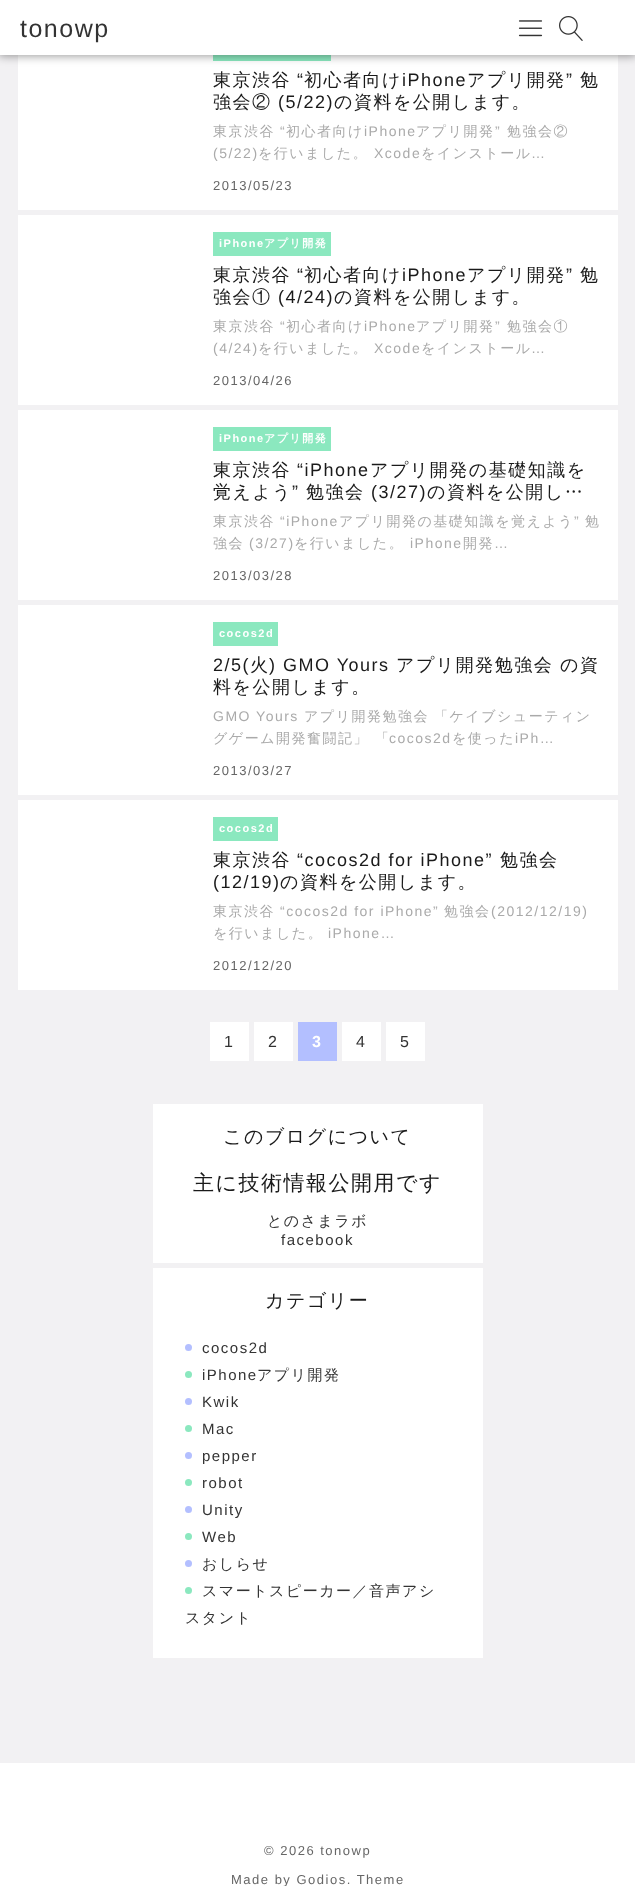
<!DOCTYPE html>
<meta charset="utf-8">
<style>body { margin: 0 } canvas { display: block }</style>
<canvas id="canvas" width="635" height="1886"></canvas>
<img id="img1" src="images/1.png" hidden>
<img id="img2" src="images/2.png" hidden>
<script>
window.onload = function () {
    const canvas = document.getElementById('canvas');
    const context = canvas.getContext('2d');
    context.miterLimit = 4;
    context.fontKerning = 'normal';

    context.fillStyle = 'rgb(242, 241, 243)';
    context.fillRect(0, 0, 635, 1886);
    context.fillStyle = 'rgb(255, 255, 255)';
    context.fillRect(18, 55, 600, 155);
    context.fillStyle = 'rgb(139, 232, 191)';
    context.fillRect(213, 55, 118, 6);
    context.fillStyle = 'rgba(0, 0, 0, 0.4)';
    context.filter = 'blur(5px)';
    context.beginPath();
    context.rect(-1, -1, 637, 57);
    context.fill();
    context.filter = 'none';
    context.fillStyle = 'rgb(255, 255, 255)';
    context.fillRect(0, 0, 635, 55);
    context.drawImage(document.getElementById('img1'), 518, 20, 25, 17);
    context.drawImage(document.getElementById('img2'), 559, 16, 24, 25);
    context.fillRect(18, 215, 600, 190);
    context.fillStyle = 'rgb(139, 232, 191)';
    context.fillRect(213, 232, 118, 24);
    context.fillStyle = 'rgb(255, 255, 255)';
    context.fillRect(18, 410, 600, 190);
    context.fillStyle = 'rgb(139, 232, 191)';
    context.fillRect(213, 427, 118, 24);
    context.fillStyle = 'rgb(255, 255, 255)';
    context.fillRect(18, 605, 600, 190);
    context.fillStyle = 'rgb(139, 232, 191)';
    context.fillRect(213, 622, 65, 24);
    context.fillStyle = 'rgb(255, 255, 255)';
    context.fillRect(18, 800, 600, 190);
    context.fillStyle = 'rgb(139, 232, 191)';
    context.fillRect(213, 817, 65, 24);
    context.fillStyle = 'rgb(255, 255, 255)';
    context.fillRect(210, 1022, 39, 39);
    context.fillRect(254, 1022, 39, 39);
    context.fillStyle = 'rgb(179, 191, 255)';
    context.fillRect(298, 1022, 39, 39);
    context.fillStyle = 'rgb(255, 255, 255)';
    context.fillRect(342, 1022, 39, 39);
    context.fillRect(386, 1022, 39, 39);
    context.fillRect(153, 1104, 330, 159);
    context.fillRect(153, 1268, 330, 390);
    context.fillStyle = 'rgb(179, 191, 255)';
    context.beginPath();
    context.arc(188.5, 1347.5, 3.5, 0, 2 * Math.PI);
    context.fill();
    context.fillStyle = 'rgb(139, 232, 191)';
    context.beginPath();
    context.arc(188.5, 1374.5, 3.5, 0, 2 * Math.PI);
    context.fill();
    context.fillStyle = 'rgb(179, 191, 255)';
    context.beginPath();
    context.arc(188.5, 1401.5, 3.5, 0, 2 * Math.PI);
    context.fill();
    context.fillStyle = 'rgb(139, 232, 191)';
    context.beginPath();
    context.arc(188.5, 1428.5, 3.5, 0, 2 * Math.PI);
    context.fill();
    context.fillStyle = 'rgb(179, 191, 255)';
    context.beginPath();
    context.arc(188.5, 1455.5, 3.5, 0, 2 * Math.PI);
    context.fill();
    context.fillStyle = 'rgb(139, 232, 191)';
    context.beginPath();
    context.arc(188.5, 1482.5, 3.5, 0, 2 * Math.PI);
    context.fill();
    context.fillStyle = 'rgb(179, 191, 255)';
    context.beginPath();
    context.arc(188.5, 1509.5, 3.5, 0, 2 * Math.PI);
    context.fill();
    context.fillStyle = 'rgb(139, 232, 191)';
    context.beginPath();
    context.arc(188.5, 1536.5, 3.5, 0, 2 * Math.PI);
    context.fill();
    context.fillStyle = 'rgb(179, 191, 255)';
    context.beginPath();
    context.arc(188.5, 1563.5, 3.5, 0, 2 * Math.PI);
    context.fill();
    context.fillStyle = 'rgb(139, 232, 191)';
    context.beginPath();
    context.arc(188.5, 1590.5, 3.5, 0, 2 * Math.PI);
    context.fill();
    context.fillStyle = 'rgb(255, 255, 255)';
    context.fillRect(0, 1763, 635, 123);
    context.letterSpacing = '1.5px';
    context.font = '25px Liberation Sans';
    context.fillStyle = 'rgb(51, 51, 51)';
    context.fillText('tonowp', 20, 37);
    context.font = '500 18px WenQuanYi Zen Hei';
    context.fillStyle = 'rgb(26, 26, 26)';
    context.fillText('東京渋谷', 213, 86);
    context.font = '18px Liberation Sans';
    context.fillText('“', 297, 86);
    context.font = '500 18px WenQuanYi Zen Hei';
    context.fillText('初心者向け', 304, 86);
    context.font = '18px Liberation Sans';
    context.fillText('iPhone', 402, 86);
    context.font = '500 18px WenQuanYi Zen Hei';
    context.fillText('アプリ開発', 467, 86);
    context.font = '18px Liberation Sans';
    context.fillText('”', 566, 86);
    context.font = '500 18px WenQuanYi Zen Hei';
    context.fillText('勉', 580, 86);
    context.fillText('強会②', 213, 108);
    context.font = '18px Liberation Sans';
    context.fillText('(5/22)', 278, 108);
    context.font = '500 18px WenQuanYi Zen Hei';
    context.fillText('の資料を公開します。', 334, 108);
    context.font = '500 14px WenQuanYi Zen Hei';
    context.fillStyle = 'rgb(170, 170, 170)';
    context.fillText('東京渋谷', 213, 136);
    context.font = '14px Liberation Sans';
    context.fillText('“', 280, 136);
    context.font = '500 14px WenQuanYi Zen Hei';
    context.fillText('初心者向け', 286, 136);
    context.font = '14px Liberation Sans';
    context.fillText('iPhone', 364, 136);
    context.font = '500 14px WenQuanYi Zen Hei';
    context.fillText('アプリ開発', 416, 136);
    context.font = '14px Liberation Sans';
    context.fillText('”', 495, 136);
    context.font = '500 14px WenQuanYi Zen Hei';
    context.fillText('勉強会②', 507, 136);
    context.font = '14px Liberation Sans';
    context.fillText('(5/22)', 213, 158);
    context.font = '500 14px WenQuanYi Zen Hei';
    context.fillText('を行いました。', 258, 158);
    context.font = '14px Liberation Sans';
    context.fillText('Xcode', 374, 158);
    context.font = '500 14px WenQuanYi Zen Hei';
    context.fillText('をインストール', 421, 158);
    context.font = '14px Liberation Sans';
    context.fillText('…', 531, 158);
    context.font = '13px Liberation Sans';
    context.fillStyle = 'rgb(102, 102, 102)';
    context.fillText('2013/05/23', 213, 190);
    context.font = 'bold 11px Liberation Sans';
    context.fillStyle = 'rgb(255, 255, 255)';
    context.fillText('iPhone', 219, 247);
    context.font = 'bold 11px WenQuanYi Zen Hei';
    context.fillText('アプリ開発', 264, 247);
    context.font = '500 18px WenQuanYi Zen Hei';
    context.fillStyle = 'rgb(26, 26, 26)';
    context.fillText('東京渋谷', 213, 281);
    context.font = '18px Liberation Sans';
    context.fillText('“', 297, 281);
    context.font = '500 18px WenQuanYi Zen Hei';
    context.fillText('初心者向け', 304, 281);
    context.font = '18px Liberation Sans';
    context.fillText('iPhone', 402, 281);
    context.font = '500 18px WenQuanYi Zen Hei';
    context.fillText('アプリ開発', 467, 281);
    context.font = '18px Liberation Sans';
    context.fillText('”', 566, 281);
    context.font = '500 18px WenQuanYi Zen Hei';
    context.fillText('勉', 580, 281);
    context.fillText('強会①', 213, 303);
    context.font = '18px Liberation Sans';
    context.fillText('(4/24)', 278, 303);
    context.font = '500 18px WenQuanYi Zen Hei';
    context.fillText('の資料を公開します。', 334, 303);
    context.font = '500 14px WenQuanYi Zen Hei';
    context.fillStyle = 'rgb(170, 170, 170)';
    context.fillText('東京渋谷', 213, 331);
    context.font = '14px Liberation Sans';
    context.fillText('“', 280, 331);
    context.font = '500 14px WenQuanYi Zen Hei';
    context.fillText('初心者向け', 286, 331);
    context.font = '14px Liberation Sans';
    context.fillText('iPhone', 364, 331);
    context.font = '500 14px WenQuanYi Zen Hei';
    context.fillText('アプリ開発', 416, 331);
    context.font = '14px Liberation Sans';
    context.fillText('”', 495, 331);
    context.font = '500 14px WenQuanYi Zen Hei';
    context.fillText('勉強会①', 507, 331);
    context.font = '14px Liberation Sans';
    context.fillText('(4/24)', 213, 353);
    context.font = '500 14px WenQuanYi Zen Hei';
    context.fillText('を行いました。', 258, 353);
    context.font = '14px Liberation Sans';
    context.fillText('Xcode', 374, 353);
    context.font = '500 14px WenQuanYi Zen Hei';
    context.fillText('をインストール', 421, 353);
    context.font = '14px Liberation Sans';
    context.fillText('…', 531, 353);
    context.font = '13px Liberation Sans';
    context.fillStyle = 'rgb(102, 102, 102)';
    context.fillText('2013/04/26', 213, 385);
    context.font = 'bold 11px Liberation Sans';
    context.fillStyle = 'rgb(255, 255, 255)';
    context.fillText('iPhone', 219, 442);
    context.font = 'bold 11px WenQuanYi Zen Hei';
    context.fillText('アプリ開発', 264, 442);
    context.font = '500 18px WenQuanYi Zen Hei';
    context.fillStyle = 'rgb(26, 26, 26)';
    context.fillText('東京渋谷', 213, 476);
    context.font = '18px Liberation Sans';
    context.fillText('“iPhone', 297, 476);
    context.font = '500 18px WenQuanYi Zen Hei';
    context.fillText('アプリ開発の基礎知識を', 370, 476);
    context.fillText('覚えよう', 213, 498);
    context.font = '18px Liberation Sans';
    context.fillText('”', 292, 498);
    context.font = '500 18px WenQuanYi Zen Hei';
    context.fillText('勉強会', 306, 498);
    context.font = '18px Liberation Sans';
    context.fillText('(3/27)', 371, 498);
    context.font = '500 18px WenQuanYi Zen Hei';
    context.fillText('の資料を公開し…', 427, 498);
    context.font = '500 14px WenQuanYi Zen Hei';
    context.fillStyle = 'rgb(170, 170, 170)';
    context.fillText('東京渋谷', 213, 526);
    context.font = '14px Liberation Sans';
    context.fillText('“iPhone', 280, 526);
    context.font = '500 14px WenQuanYi Zen Hei';
    context.fillText('アプリ開発の基礎知識を覚えよう', 339, 526);
    context.font = '14px Liberation Sans';
    context.fillText('”', 574, 526);
    context.font = '500 14px WenQuanYi Zen Hei';
    context.fillText('勉', 585, 526);
    context.fillText('強会', 213, 548);
    context.font = '14px Liberation Sans';
    context.fillText('(3/27)', 249, 548);
    context.font = '500 14px WenQuanYi Zen Hei';
    context.fillText('を行いました。', 294, 548);
    context.font = '14px Liberation Sans';
    context.fillText('iPhone', 410, 548);
    context.font = '500 14px WenQuanYi Zen Hei';
    context.fillText('開発', 463, 548);
    context.font = '14px Liberation Sans';
    context.fillText('…', 494, 548);
    context.font = '13px Liberation Sans';
    context.fillStyle = 'rgb(102, 102, 102)';
    context.fillText('2013/03/28', 213, 580);
    context.font = 'bold 11px Liberation Sans';
    context.fillStyle = 'rgb(255, 255, 255)';
    context.fillText('cocos2d', 219, 637);
    context.font = '18px Liberation Sans';
    context.fillStyle = 'rgb(26, 26, 26)';
    context.fillText('2/5(', 213, 671);
    context.font = '500 18px WenQuanYi Zen Hei';
    context.fillText('火', 250, 671);
    context.font = '18px Liberation Sans';
    context.fillText(') GMO Yours', 269, 671);
    context.font = '500 18px WenQuanYi Zen Hei';
    context.fillText('アプリ開発勉強会', 396, 671);
    context.fillText('の資', 560, 671);
    context.fillText('料を公開します。', 213, 693);
    context.font = '14px Liberation Sans';
    context.fillStyle = 'rgb(170, 170, 170)';
    context.fillText('GMO Yours', 213, 721);
    context.font = '500 14px WenQuanYi Zen Hei';
    context.fillText('アプリ開発勉強会', 304, 721);
    context.fillText('「ケイブシューティン', 434, 721);
    context.fillText('グゲーム開発奮闘記」 「', 213, 743);
    context.font = '14px Liberation Sans';
    context.fillText('cocos2d', 389, 743);
    context.font = '500 14px WenQuanYi Zen Hei';
    context.fillText('を使った', 452, 743);
    context.font = '14px Liberation Sans';
    context.fillText('iPh…', 515, 743);
    context.font = '13px Liberation Sans';
    context.fillStyle = 'rgb(102, 102, 102)';
    context.fillText('2013/03/27', 213, 775);
    context.font = 'bold 11px Liberation Sans';
    context.fillStyle = 'rgb(255, 255, 255)';
    context.fillText('cocos2d', 219, 832);
    context.font = '500 18px WenQuanYi Zen Hei';
    context.fillStyle = 'rgb(26, 26, 26)';
    context.fillText('東京渋谷', 213, 866);
    context.font = '18px Liberation Sans';
    context.fillText('“cocos2d for iPhone”', 297, 866);
    context.font = '500 18px WenQuanYi Zen Hei';
    context.fillText('勉強会', 500, 866);
    context.font = '18px Liberation Sans';
    context.fillText('(12/19)', 213, 888);
    context.font = '500 18px WenQuanYi Zen Hei';
    context.fillText('の資料を公開します。', 280, 888);
    context.font = '500 14px WenQuanYi Zen Hei';
    context.fillStyle = 'rgb(170, 170, 170)';
    context.fillText('東京渋谷', 213, 916);
    context.font = '14px Liberation Sans';
    context.fillText('“cocos2d for iPhone”', 280, 916);
    context.font = '500 14px WenQuanYi Zen Hei';
    context.fillText('勉強会', 444, 916);
    context.font = '14px Liberation Sans';
    context.fillText('(2012/12/19)', 491, 916);
    context.font = '500 14px WenQuanYi Zen Hei';
    context.fillText('を行いました。', 213, 938);
    context.font = '14px Liberation Sans';
    context.fillText('iPhone…', 328, 938);
    context.font = '13px Liberation Sans';
    context.fillStyle = 'rgb(102, 102, 102)';
    context.fillText('2012/12/20', 213, 970);
    context.font = '16px Liberation Sans';
    context.fillStyle = 'rgb(51, 51, 51)';
    context.fillText('1', 224, 1047);
    context.fillText('2', 268, 1047);
    context.font = 'bold 16px Liberation Sans';
    context.fillStyle = 'rgb(255, 255, 255)';
    context.fillText('3', 312, 1047);
    context.font = '16px Liberation Sans';
    context.fillStyle = 'rgb(51, 51, 51)';
    context.fillText('4', 356, 1047);
    context.fillText('5', 400, 1047);
    context.font = '500 19px WenQuanYi Zen Hei';
    context.fillStyle = 'rgb(26, 26, 26)';
    context.fillText('このブログについて', 223, 1143);
    context.font = '500 21px WenQuanYi Zen Hei';
    context.fillText('主に技術情報公開用です', 193, 1190);
    context.font = '500 15px WenQuanYi Zen Hei';
    context.fillStyle = 'rgb(51, 51, 51)';
    context.fillText('とのさまラボ', 267, 1226);
    context.font = '15px Liberation Sans';
    context.fillText('facebook', 281, 1245);
    context.font = '500 19px WenQuanYi Zen Hei';
    context.fillStyle = 'rgb(26, 26, 26)';
    context.fillText('カテゴリー', 265, 1307);
    context.font = '15px Liberation Sans';
    context.fillStyle = 'rgb(51, 51, 51)';
    context.fillText('cocos2d', 202, 1353);
    context.fillText('iPhone', 202, 1380);
    context.font = '500 15px WenQuanYi Zen Hei';
    context.fillText('アプリ開発', 257, 1380);
    context.font = '15px Liberation Sans';
    context.fillText('Kwik', 202, 1407);
    context.fillText('Mac', 202, 1434);
    context.fillText('pepper', 202, 1461);
    context.fillText('robot', 202, 1488);
    context.fillText('Unity', 202, 1515);
    context.fillText('Web', 202, 1542);
    context.font = '500 15px WenQuanYi Zen Hei';
    context.fillText('おしらせ', 202, 1569);
    context.fillText('スマートスピーカー／音声アシ', 202, 1596);
    context.fillText('スタント', 185, 1623);
    context.font = '13px Liberation Sans';
    context.fillStyle = 'rgb(102, 102, 102)';
    context.fillText('© 2026 tonowp', 264, 1855);
    context.fillText('Made by Godios. Theme', 231, 1884);
};
</script>
